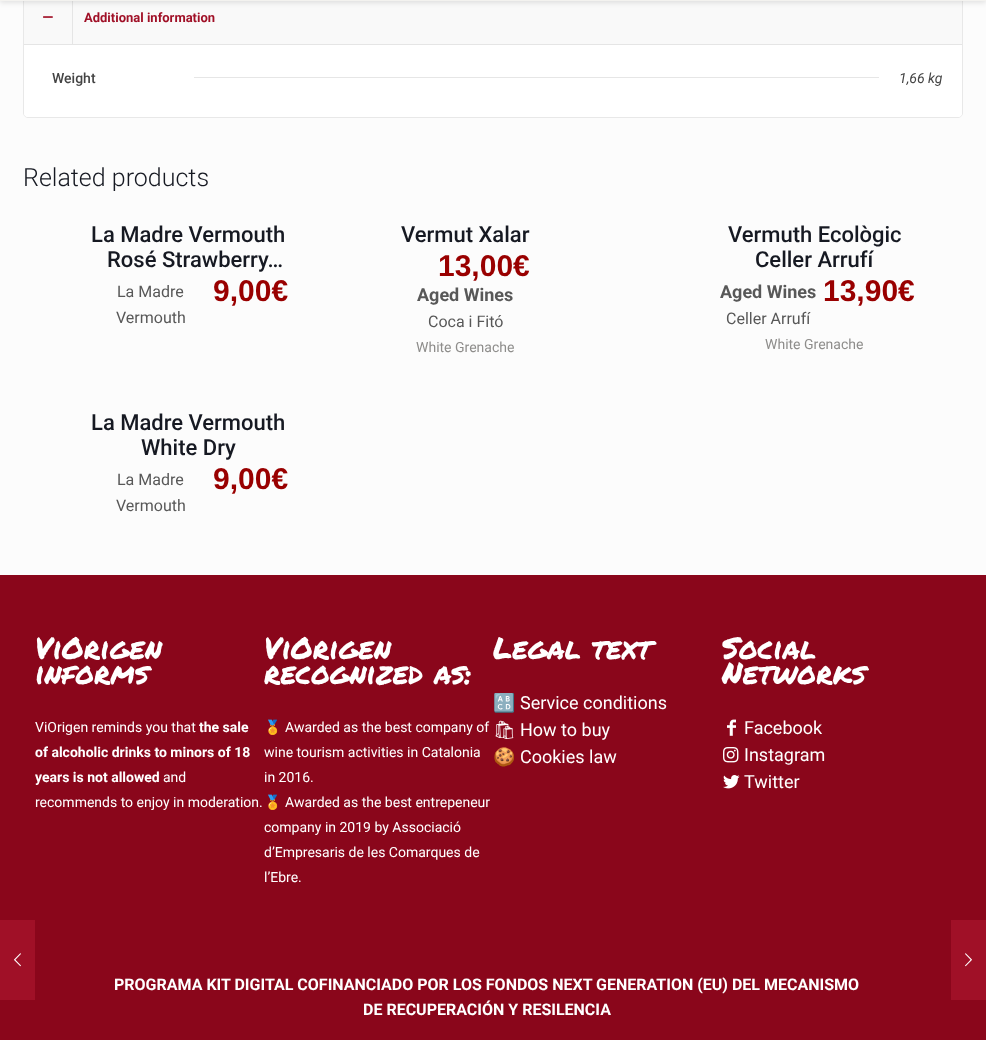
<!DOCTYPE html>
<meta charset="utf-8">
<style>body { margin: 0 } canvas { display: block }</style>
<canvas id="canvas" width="986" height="1040"></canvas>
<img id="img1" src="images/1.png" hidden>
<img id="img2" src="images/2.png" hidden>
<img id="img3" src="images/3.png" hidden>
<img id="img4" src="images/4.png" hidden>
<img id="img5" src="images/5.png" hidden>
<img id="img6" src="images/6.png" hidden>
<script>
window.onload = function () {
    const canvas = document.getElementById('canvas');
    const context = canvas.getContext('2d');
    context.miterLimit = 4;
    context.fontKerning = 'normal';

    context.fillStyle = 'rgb(252, 252, 252)';
    context.fillRect(0, 0, 986, 1040);
    context.fillStyle = 'rgb(138, 6, 27)';
    context.fillRect(0, 575, 986, 465);
    context.fillStyle = 'rgb(160, 16, 39)';
    context.fillRect(0, 920, 35, 80);
    context.drawImage(document.getElementById('img1'), 14, 953, 7, 14);
    context.beginPath();
    context.roundRect(23.5, -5.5, 939, 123, 4.5);
    context.strokeStyle = 'rgb(232, 232, 232)';
    context.stroke();
    context.fillStyle = 'rgb(249, 249, 249)';
    context.fillRect(24, 0, 938, 44);
    context.fillStyle = 'rgb(229, 229, 229)';
    context.fillRect(72, 0, 1, 44);
    context.fillStyle = 'rgba(0, 0, 0, 0.1)';
    context.filter = 'blur(2.5px)';
    context.beginPath();
    context.rect(0, -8, 986, 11);
    context.fill();
    context.filter = 'none';
    context.fillStyle = 'rgba(244, 243, 239, 0.97)';
    context.fillRect(0, 0, 986, 1);
    context.fillStyle = 'rgb(229, 229, 229)';
    context.fillRect(24, 44, 938, 1);
    context.drawImage(document.getElementById('img2'), 43, 16, 10, 2);
    context.fillStyle = 'rgb(255, 255, 255)';
    context.beginPath();
    context.roundRect(24, 45, 938, 72, [0, 0, 4, 4]);
    context.fill();
    context.fillStyle = 'rgb(230, 230, 230)';
    context.fillRect(194, 77, 685, 1);
    context.drawImage(document.getElementById('img3'), 727, 719, 9, 17);
    context.drawImage(document.getElementById('img4'), 723, 747, 16, 16);
    context.drawImage(document.getElementById('img5'), 723, 775, 17, 14);
    context.fillStyle = 'rgb(160, 16, 39)';
    context.fillRect(951, 920, 35, 80);
    context.drawImage(document.getElementById('img6'), 965, 953, 7, 14);
    context.font = 'bold 13px Roboto';
    context.fillText('Additional information', 84, 22);
    context.font = '500 14px Roboto';
    context.fillStyle = 'rgb(68, 68, 68)';
    context.fillText('Weight', 52, 83);
    context.font = 'italic 14px Roboto';
    context.fillText('1,66 kg', 899, 83);
    context.font = '300 25px Roboto';
    context.fillStyle = 'rgb(22, 25, 34)';
    context.fillText('Related products', 23, 186);
    context.font = '500 22px Roboto';
    context.fillText('La Madre Vermouth', 91, 242);
    context.fillText('Rosé Strawberry…', 107, 267);
    context.font = '16px Roboto';
    context.fillStyle = 'rgb(88, 88, 88)';
    context.fillText('La Madre', 117, 297);
    context.fillText('Vermouth', 116, 323);
    context.font = 'bold 30px Liberation Sans';
    context.fillStyle = 'rgb(153, 0, 0)';
    context.fillText('9,00€', 213, 301);
    context.font = '500 22px Roboto';
    context.fillStyle = 'rgb(22, 25, 34)';
    context.fillText('Vermut Xalar', 401, 242);
    context.font = 'bold 30px Liberation Sans';
    context.fillStyle = 'rgb(153, 0, 0)';
    context.fillText('13,00€', 438, 276);
    context.font = 'bold 18px Roboto';
    context.fillStyle = 'rgb(88, 88, 88)';
    context.fillText('Aged Wines', 417, 301);
    context.font = '16px Roboto';
    context.fillText('Coca i Fitó', 428, 327);
    context.font = '14px Roboto';
    context.fillStyle = 'rgb(142, 141, 139)';
    context.fillText('White Grenache', 416, 352);
    context.font = '500 22px Roboto';
    context.fillStyle = 'rgb(22, 25, 34)';
    context.fillText('Vermuth Ecològic', 728, 242);
    context.fillText('Celler Arrufí', 755, 267);
    context.font = 'bold 18px Roboto';
    context.fillStyle = 'rgb(88, 88, 88)';
    context.fillText('Aged Wines', 720, 298);
    context.font = 'bold 30px Liberation Sans';
    context.fillStyle = 'rgb(153, 0, 0)';
    context.fillText('13,90€', 823, 301);
    context.font = '16px Roboto';
    context.fillStyle = 'rgb(88, 88, 88)';
    context.fillText('Celler Arrufí', 726, 324);
    context.font = '14px Roboto';
    context.fillStyle = 'rgb(142, 141, 139)';
    context.fillText('White Grenache', 765, 349);
    context.font = '500 22px Roboto';
    context.fillStyle = 'rgb(22, 25, 34)';
    context.fillText('La Madre Vermouth', 91, 430);
    context.fillText('White Dry', 141, 455);
    context.font = '16px Roboto';
    context.fillStyle = 'rgb(88, 88, 88)';
    context.fillText('La Madre', 117, 485);
    context.fillText('Vermouth', 116, 511);
    context.font = 'bold 30px Liberation Sans';
    context.fillStyle = 'rgb(153, 0, 0)';
    context.fillText('9,00€', 213, 489);
    context.font = '30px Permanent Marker';
    context.fillStyle = 'rgb(255, 255, 255)';
    context.fillText('ViOrigen', 35, 659);
    context.fillText('informs', 35, 684);
    context.font = '14px Roboto';
    context.fillText('ViOrigen reminds you that', 35, 732);
    context.font = 'bold 14px Roboto';
    context.fillText('the sale', 199, 732);
    context.fillText('of alcoholic drinks to minors of 18', 35, 757);
    context.fillText('years is not allowed', 35, 782);
    context.font = '14px Roboto';
    context.fillText('and', 163, 782);
    context.fillText('recommends to enjoy in moderation.', 35, 807);
    context.font = '30px Permanent Marker';
    context.fillText('ViOrigen', 264, 659);
    context.fillText('recognized as:', 264, 684);
    context.font = '14px Noto Color Emoji';
    context.fillText('🏅', 264, 732);
    context.font = '14px Roboto';
    context.fillText('Awarded as the best company of', 285, 732);
    context.fillText('wine tourism activities in Catalonia', 264, 757);
    context.fillText('in 2016.', 264, 782);
    context.font = '14px Noto Color Emoji';
    context.fillText('🏅', 264, 807);
    context.font = '14px Roboto';
    context.fillText('Awarded as the best entrepeneur', 285, 807);
    context.fillText('company in 2019 by Associació', 264, 832);
    context.fillText('d’Empresaris de les Comarques de', 264, 857);
    context.fillText('l’Ebre.', 264, 882);
    context.font = '30px Permanent Marker';
    context.fillText('Legal text', 493, 659);
    context.font = '18px Noto Color Emoji';
    context.fillText('🔠', 493, 709);
    context.font = '18px Roboto';
    context.fillText('Service conditions', 520, 709);
    context.font = '18px Noto Emoji';
    context.fillText('🛍', 493, 736);
    context.font = '18px Roboto';
    context.fillText('How to buy', 520, 736);
    context.font = '18px Noto Color Emoji';
    context.fillText('🍪', 493, 763);
    context.font = '18px Roboto';
    context.fillText('Cookies law', 520, 763);
    context.font = '30px Permanent Marker';
    context.fillText('Social', 722, 659);
    context.fillText('Networks', 722, 684);
    context.font = '18px Roboto';
    context.fillText('Facebook', 744, 734);
    context.fillText('Instagram', 744, 761);
    context.fillText('Twitter', 744, 788);
    context.font = 'bold 16px Roboto';
    context.fillText('PROGRAMA KIT DIGITAL COFINANCIADO POR LOS FONDOS NEXT GENERATION (EU) DEL MECANISMO', 114, 990);
    context.fillText('DE RECUPERACIÓN Y RESILENCIA', 363, 1015);
};
</script>
